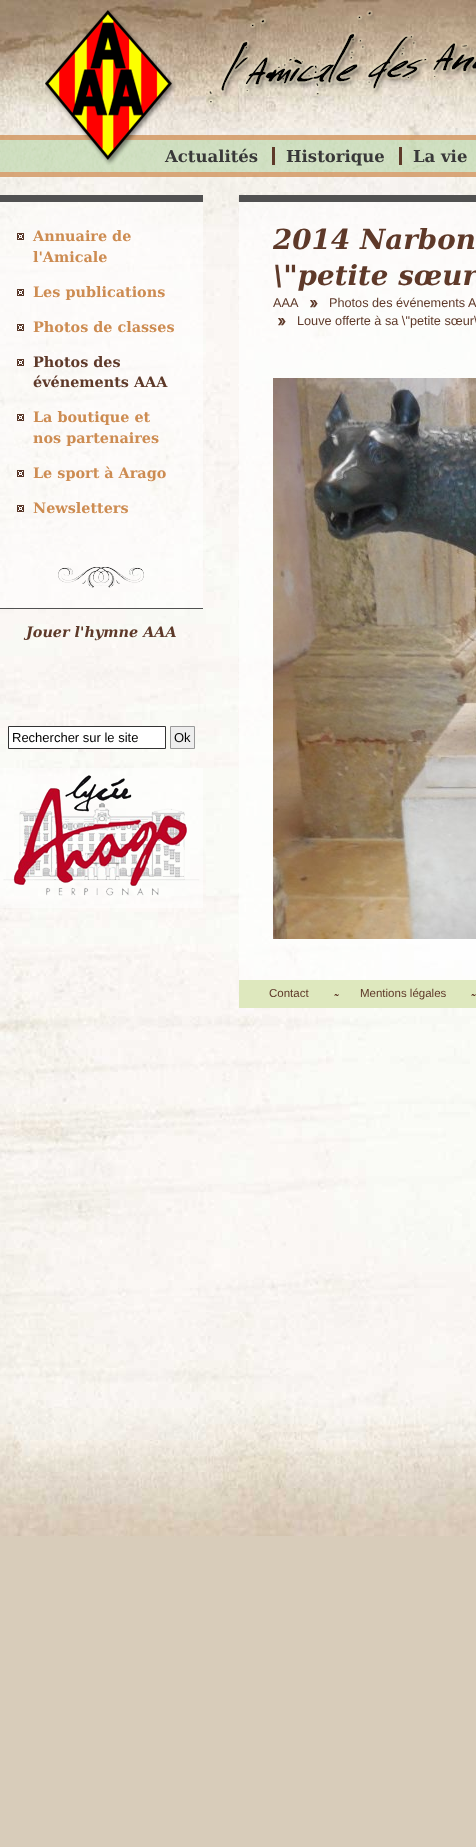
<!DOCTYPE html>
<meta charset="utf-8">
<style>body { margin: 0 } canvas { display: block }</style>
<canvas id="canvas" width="476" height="1847"></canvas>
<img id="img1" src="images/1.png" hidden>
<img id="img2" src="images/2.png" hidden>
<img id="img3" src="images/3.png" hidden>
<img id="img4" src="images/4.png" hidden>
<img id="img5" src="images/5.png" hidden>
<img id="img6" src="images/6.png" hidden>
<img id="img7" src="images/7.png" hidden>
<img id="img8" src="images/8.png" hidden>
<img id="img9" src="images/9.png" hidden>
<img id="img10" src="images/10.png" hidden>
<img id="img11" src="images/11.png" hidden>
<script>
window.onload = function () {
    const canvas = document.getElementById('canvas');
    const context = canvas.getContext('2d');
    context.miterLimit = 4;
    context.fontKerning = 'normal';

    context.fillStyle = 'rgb(216, 204, 186)';
    context.fillRect(0, 0, 476, 1847);
    context.drawImage(document.getElementById('img1'), 0, 0, 476, 1536);
    context.drawImage(document.getElementById('img2'), 0, 135, 476, 42);
    context.drawImage(document.getElementById('img3'), 45, 10, 131, 155);
    context.drawImage(document.getElementById('img4'), 208, 10, 268, 99);
    context.fillStyle = 'rgb(94, 57, 41)';
    context.fillRect(272, 147, 3, 18);
    context.fillRect(399, 147, 3, 18);
    context.drawImage(document.getElementById('img5'), 0, 202, 203, 406);
    context.fillStyle = 'rgb(81, 81, 81)';
    context.fillRect(0, 195, 203, 7);
    context.fillRect(0, 608, 203, 1);
    context.drawImage(document.getElementById('img6'), 17, 233, 7, 7);
    context.drawImage(document.getElementById('img6'), 17, 289, 7, 7);
    context.drawImage(document.getElementById('img6'), 17, 324, 7, 7);
    context.drawImage(document.getElementById('img6'), 17, 359, 7, 7);
    context.drawImage(document.getElementById('img6'), 17, 414, 7, 7);
    context.drawImage(document.getElementById('img6'), 17, 470, 7, 7);
    context.drawImage(document.getElementById('img6'), 17, 505, 7, 7);
    context.fillStyle = 'rgb(255, 255, 255)';
    context.beginPath();
    context.rect(8.5, 726.5, 157, 22);
    context.fill();
    context.strokeStyle = 'rgb(51, 51, 51)';
    context.stroke();
    context.fillStyle = 'rgb(238, 238, 238)';
    context.beginPath();
    context.rect(170.5, 726.5, 24, 22);
    context.fill();
    context.strokeStyle = 'rgb(153, 153, 153)';
    context.stroke();
    context.drawImage(document.getElementById('img7'), 0, 768, 203, 140);
    context.fillStyle = 'rgba(255, 255, 255, 0.6)';
    context.fillRect(239, 202, 237, 778);
    context.fillStyle = 'rgb(81, 81, 81)';
    context.fillRect(239, 195, 237, 7);
    context.drawImage(document.getElementById('img8'), 310, 300, 8, 8);
    context.drawImage(document.getElementById('img9'), 278, 318, 8, 8);
    context.drawImage(document.getElementById('img10'), 273, 378, 203, 561);
    context.fillStyle = 'rgb(222, 232, 190)';
    context.fillRect(239, 980, 237, 28);
    context.drawImage(document.getElementById('img11'), 334, 994, 5, 2);
    context.drawImage(document.getElementById('img11'), 471, 994, 5, 2);
    context.font = 'bold 16.5px DejaVu Serif';
    context.fillStyle = 'rgb(57, 57, 57)';
    context.fillText('Actualités', 165, 162);
    context.fillText('Historique', 286, 162);
    context.fillText('La vie', 413, 162);
    context.font = 'bold 14.4px DejaVu Serif';
    context.fillStyle = 'rgb(205, 140, 82)';
    context.fillText('Annuaire de', 33, 241);
    context.fillText('l\'Amicale', 33, 262);
    context.fillText('Les publications', 33, 297);
    context.fillText('Photos de classes', 33, 332);
    context.fillStyle = 'rgb(94, 57, 41)';
    context.fillText('Photos des', 33, 367);
    context.fillText('événements AAA', 33, 387);
    context.fillStyle = 'rgb(205, 140, 82)';
    context.fillText('La boutique et', 33, 422);
    context.fillText('nos partenaires', 33, 443);
    context.fillText('Le sport à Arago', 33, 478);
    context.fillText('Newsletters', 33, 513);
    context.font = 'italic bold 14.4px DejaVu Serif';
    context.fillStyle = 'rgb(94, 57, 41)';
    context.fillText('Jouer l\'hymne AAA', 26, 637);
    context.font = '13px Liberation Sans';
    context.fillStyle = 'rgb(0, 0, 0)';
    context.fillText('Rechercher sur le site', 12, 742);
    context.fillText('Ok', 174, 742);
    context.font = 'italic bold 27.75px DejaVu Serif';
    context.fillStyle = 'rgb(94, 57, 41)';
    context.fillText('2014 Narbon', 273, 249);
    context.fillText('\\"petite sœur', 273, 285);
    context.font = '12.7px Liberation Sans';
    context.fillText('AAA', 273, 307);
    context.fillText('Photos des événements A', 329, 307);
    context.fillText('Louve offerte à sa \\"petite sœur\\', 297, 325);
    context.font = '11.5px Liberation Sans';
    context.fillText('Contact', 269, 997);
    context.fillText('Mentions légales', 360, 997);
};
</script>
